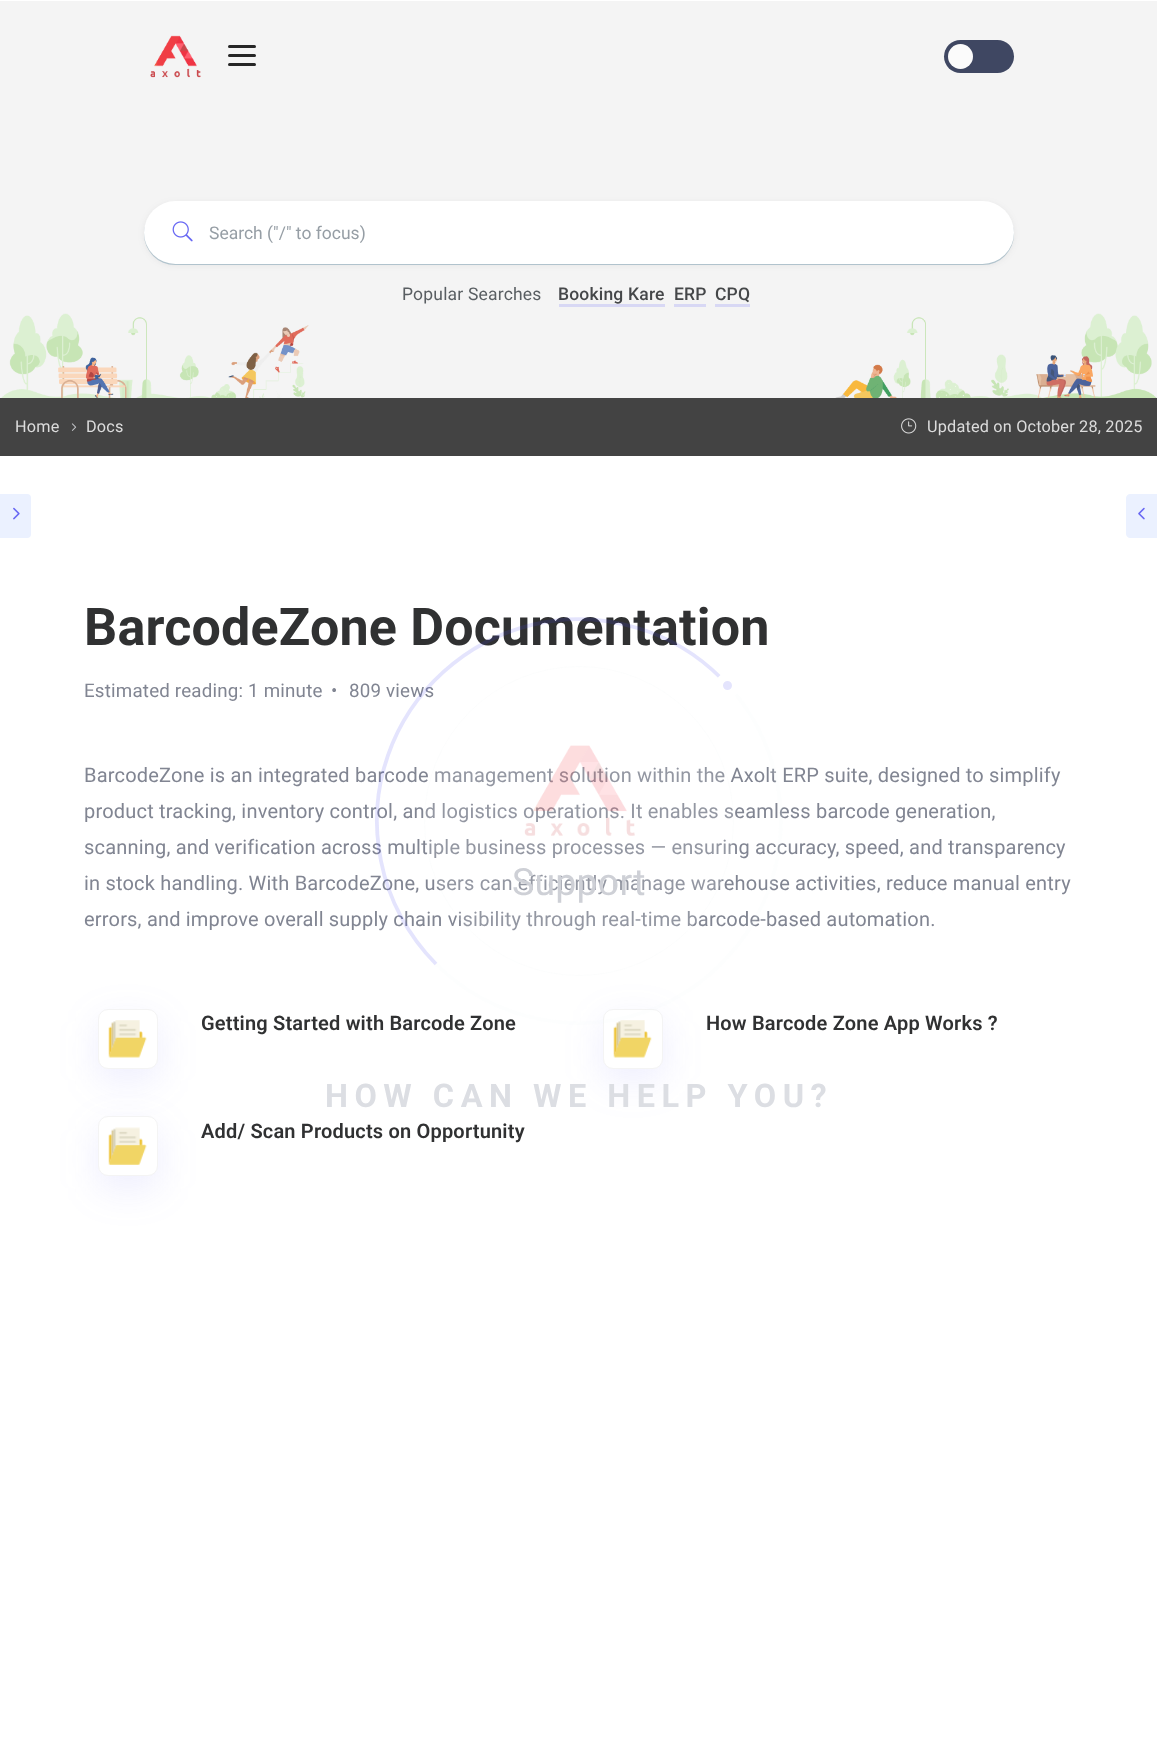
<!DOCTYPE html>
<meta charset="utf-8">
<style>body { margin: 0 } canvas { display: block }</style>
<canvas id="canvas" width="1157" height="1743"></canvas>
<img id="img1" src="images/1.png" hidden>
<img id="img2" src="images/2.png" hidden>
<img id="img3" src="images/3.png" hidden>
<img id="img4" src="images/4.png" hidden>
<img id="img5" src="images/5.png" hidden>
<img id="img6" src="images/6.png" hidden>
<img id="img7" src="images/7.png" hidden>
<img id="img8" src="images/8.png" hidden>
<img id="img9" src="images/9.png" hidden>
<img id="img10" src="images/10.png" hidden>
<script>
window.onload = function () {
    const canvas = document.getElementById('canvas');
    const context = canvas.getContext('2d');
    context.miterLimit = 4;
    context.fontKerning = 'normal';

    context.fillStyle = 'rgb(255, 255, 255)';
    context.fillRect(0, 0, 1157, 1743);
    context.fillStyle = 'rgb(244, 244, 244)';
    context.fillRect(0, 1, 1157, 397);
    context.drawImage(document.getElementById('img1'), 150, 35, 51, 43);
    context.fillStyle = 'rgb(38, 38, 38)';
    context.beginPath();
    context.roundRect(228, 45, 28, 3, 1.5);
    context.fill();
    context.beginPath();
    context.roundRect(228, 54, 28, 3, 1.5);
    context.fill();
    context.beginPath();
    context.roundRect(228, 63, 28, 3, 1.5);
    context.fill();
    context.fillStyle = 'rgb(63, 71, 98)';
    context.beginPath();
    context.roundRect(944, 40, 70, 33, 16.5);
    context.fill();
    context.fillStyle = 'rgb(251, 251, 251)';
    context.beginPath();
    context.arc(960.5, 56.5, 12.5, 0, 2 * Math.PI);
    context.fill();
    context.drawImage(document.getElementById('img2'), 1, 313, 1156, 85);
    context.fillStyle = 'rgba(89, 93, 95, 0.1)';
    context.filter = 'blur(3px)';
    context.beginPath();
    context.roundRect(144, 203, 870, 62, 31);
    context.fill();
    context.filter = 'none';
    context.fillStyle = 'rgba(48, 106, 136, 0.3)';
    context.filter = 'blur(0.5px)';
    context.beginPath();
    context.roundRect(144, 203, 870, 62, 31);
    context.fill();
    context.filter = 'none';
    context.fillStyle = 'rgb(255, 255, 255)';
    context.beginPath();
    context.roundRect(144, 201, 870, 63, 31.5);
    context.fill();
    context.drawImage(document.getElementById('img3'), 172, 221, 21, 21);
    context.fillStyle = 'rgb(216, 216, 244)';
    context.fillRect(559, 304, 106, 3);
    context.fillRect(674, 304, 32, 3);
    context.fillRect(715, 304, 35, 3);
    context.fillStyle = 'rgb(67, 67, 67)';
    context.fillRect(0, 398, 1157, 58);
    context.drawImage(document.getElementById('img4'), 71, 423, 6, 8);
    context.drawImage(document.getElementById('img5'), 901, 418, 16, 16);
    context.fillStyle = 'rgb(235, 241, 255)';
    context.beginPath();
    context.roundRect(0, 494, 31, 44, [0, 4, 4, 0]);
    context.fill();
    context.drawImage(document.getElementById('img6'), 13, 507, 7, 13);
    context.beginPath();
    context.moveTo(1130, 494);
    context.lineTo(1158, 494);
    context.lineTo(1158, 538);
    context.lineTo(1130, 538);
    context.bezierCurveTo(1128, 538, 1126, 536, 1126, 534);
    context.lineTo(1126, 498);
    context.bezierCurveTo(1126, 496, 1128, 494, 1130, 494);
    context.closePath();
    context.fill();
    context.drawImage(document.getElementById('img7'), 1138, 507, 7, 13);
    context.fillStyle = 'rgba(103, 103, 243, 0.12)';
    context.filter = 'blur(19px)';
    context.beginPath();
    context.roundRect(98, 1021, 60, 60, 10);
    context.fill();
    context.filter = 'none';
    context.fillStyle = 'rgb(255, 255, 255)';
    context.beginPath();
    context.roundRect(98.5, 1009.5, 59, 59, 9.5);
    context.fill();
    context.strokeStyle = 'rgb(244, 244, 244)';
    context.stroke();
    context.drawImage(document.getElementById('img8'), 108, 1020, 39, 38);
    context.fillStyle = 'rgba(103, 103, 243, 0.12)';
    context.filter = 'blur(19px)';
    context.beginPath();
    context.roundRect(603, 1021, 60, 60, 10);
    context.fill();
    context.filter = 'none';
    context.fillStyle = 'rgb(255, 255, 255)';
    context.beginPath();
    context.roundRect(603.5, 1009.5, 59, 59, 9.5);
    context.fill();
    context.stroke();
    context.drawImage(document.getElementById('img8'), 613, 1020, 39, 38);
    context.fillStyle = 'rgba(103, 103, 243, 0.12)';
    context.filter = 'blur(19px)';
    context.beginPath();
    context.roundRect(98, 1129, 60, 60, 10);
    context.fill();
    context.filter = 'none';
    context.fillStyle = 'rgb(255, 255, 255)';
    context.beginPath();
    context.roundRect(98.5, 1116.5, 59, 59, 9.5);
    context.fill();
    context.stroke();
    context.drawImage(document.getElementById('img9'), 108, 1127, 39, 38);
    context.font = '17.5px Roboto';
    context.fillStyle = 'rgb(150, 158, 165)';
    context.fillText('Search ("/" to focus)', 209, 239);
    context.letterSpacing = '0.19px';
    context.fillStyle = 'rgb(89, 94, 98)';
    context.fillText('Popular Searches', 402, 300);
    context.font = '500 17.5px Roboto';
    context.fillStyle = 'rgb(69, 71, 73)';
    context.fillText('Booking Kare', 558, 300);
    context.fillText('ERP', 674, 300);
    context.fillText('CPQ', 715, 300);
    context.font = '16.25px Roboto';
    context.fillStyle = 'rgb(220, 220, 220)';
    context.fillText('Home', 15, 432);
    context.fillText('Docs', 86, 432);
    context.fillText('Updated on October 28, 2025', 927, 432);
    context.font = 'bold 52px Roboto';
    context.fillStyle = 'rgb(48, 49, 50)';
    context.fillText('BarcodeZone Documentation', 84, 645);
    context.font = '18.75px Roboto';
    context.fillStyle = 'rgb(129, 133, 146)';
    context.fillText('Estimated reading: 1 minute', 84, 697);
    context.fillText('•', 331, 697);
    context.fillText('809 views', 349, 697);
    context.font = '20px Roboto';
    context.fillText('BarcodeZone is an integrated barcode management solution within the Axolt ERP suite, designed to simplify', 84, 782);
    context.fillText('product tracking, inventory control, and logistics operations. It enables seamless barcode generation,', 84, 818);
    context.fillText('scanning, and verification across multiple business processes — ensuring accuracy, speed, and transparency', 84, 854);
    context.fillText('in stock handling. With BarcodeZone, users can efficiently manage warehouse activities, reduce manual entry', 84, 890);
    context.fillText('errors, and improve overall supply chain visibility through real-time barcode-based automation.', 84, 926);
    context.font = '600 20px Roboto';
    context.fillStyle = 'rgb(48, 49, 50)';
    context.fillText('Getting Started with Barcode Zone', 201, 1030);
    context.fillText('How Barcode Zone App Works ?', 706, 1030);
    context.fillText('Add/ Scan Products on Opportunity', 201, 1138);
    context.fillStyle = 'rgba(253, 253, 253, 0.15)';
    context.beginPath();
    context.arc(579, 821, 155, 0, 2 * Math.PI);
    context.fill();
    context.beginPath();
    context.arc(579, 821, 154.5, 0, 2 * Math.PI);
    context.strokeStyle = 'rgba(238, 243, 244, 0.15)';
    context.stroke();
    context.drawImage(document.getElementById('img10'), 524, 745, 111, 91);
    context.font = '37.5px Roboto';
    context.fillStyle = 'rgb(206, 208, 214)';
    context.fillText('Support', 512, 895);
    context.beginPath();
    context.moveTo(721.5, 678.5);
    context.bezierCurveTo(745, 702, 762.5, 731, 772, 762.5);
    context.bezierCurveTo(816, 908, 688.5, 1049, 539, 1019);
    context.bezierCurveTo(500.5, 1011.5, 464, 992, 436, 964);
    context.strokeStyle = 'rgba(241, 246, 248, 0.15)';
    context.lineWidth = 3.8;
    context.stroke();
    context.beginPath();
    context.moveTo(436, 964);
    context.bezierCurveTo(408, 936, 388.5, 899.5, 381, 861);
    context.bezierCurveTo(351, 711.5, 492, 584, 637.5, 628);
    context.bezierCurveTo(669, 637.5, 698, 655, 721.5, 678.5);
    context.strokeStyle = 'rgba(76, 76, 241, 0.15)';
    context.stroke();
    context.fillStyle = 'rgb(228, 228, 253)';
    context.beginPath();
    context.arc(727.5, 685.5, 8.5, 0, 2 * Math.PI);
    context.fill();
    context.strokeStyle = 'rgb(255, 255, 255)';
    context.lineWidth = 8;
    context.stroke();
    context.letterSpacing = '6.5px';
    context.font = 'bold 32.5px Roboto';
    context.fillStyle = 'rgb(220, 222, 227)';
    context.fillText('HOW CAN WE HELP YOU?', 325, 1107);
};
</script>
